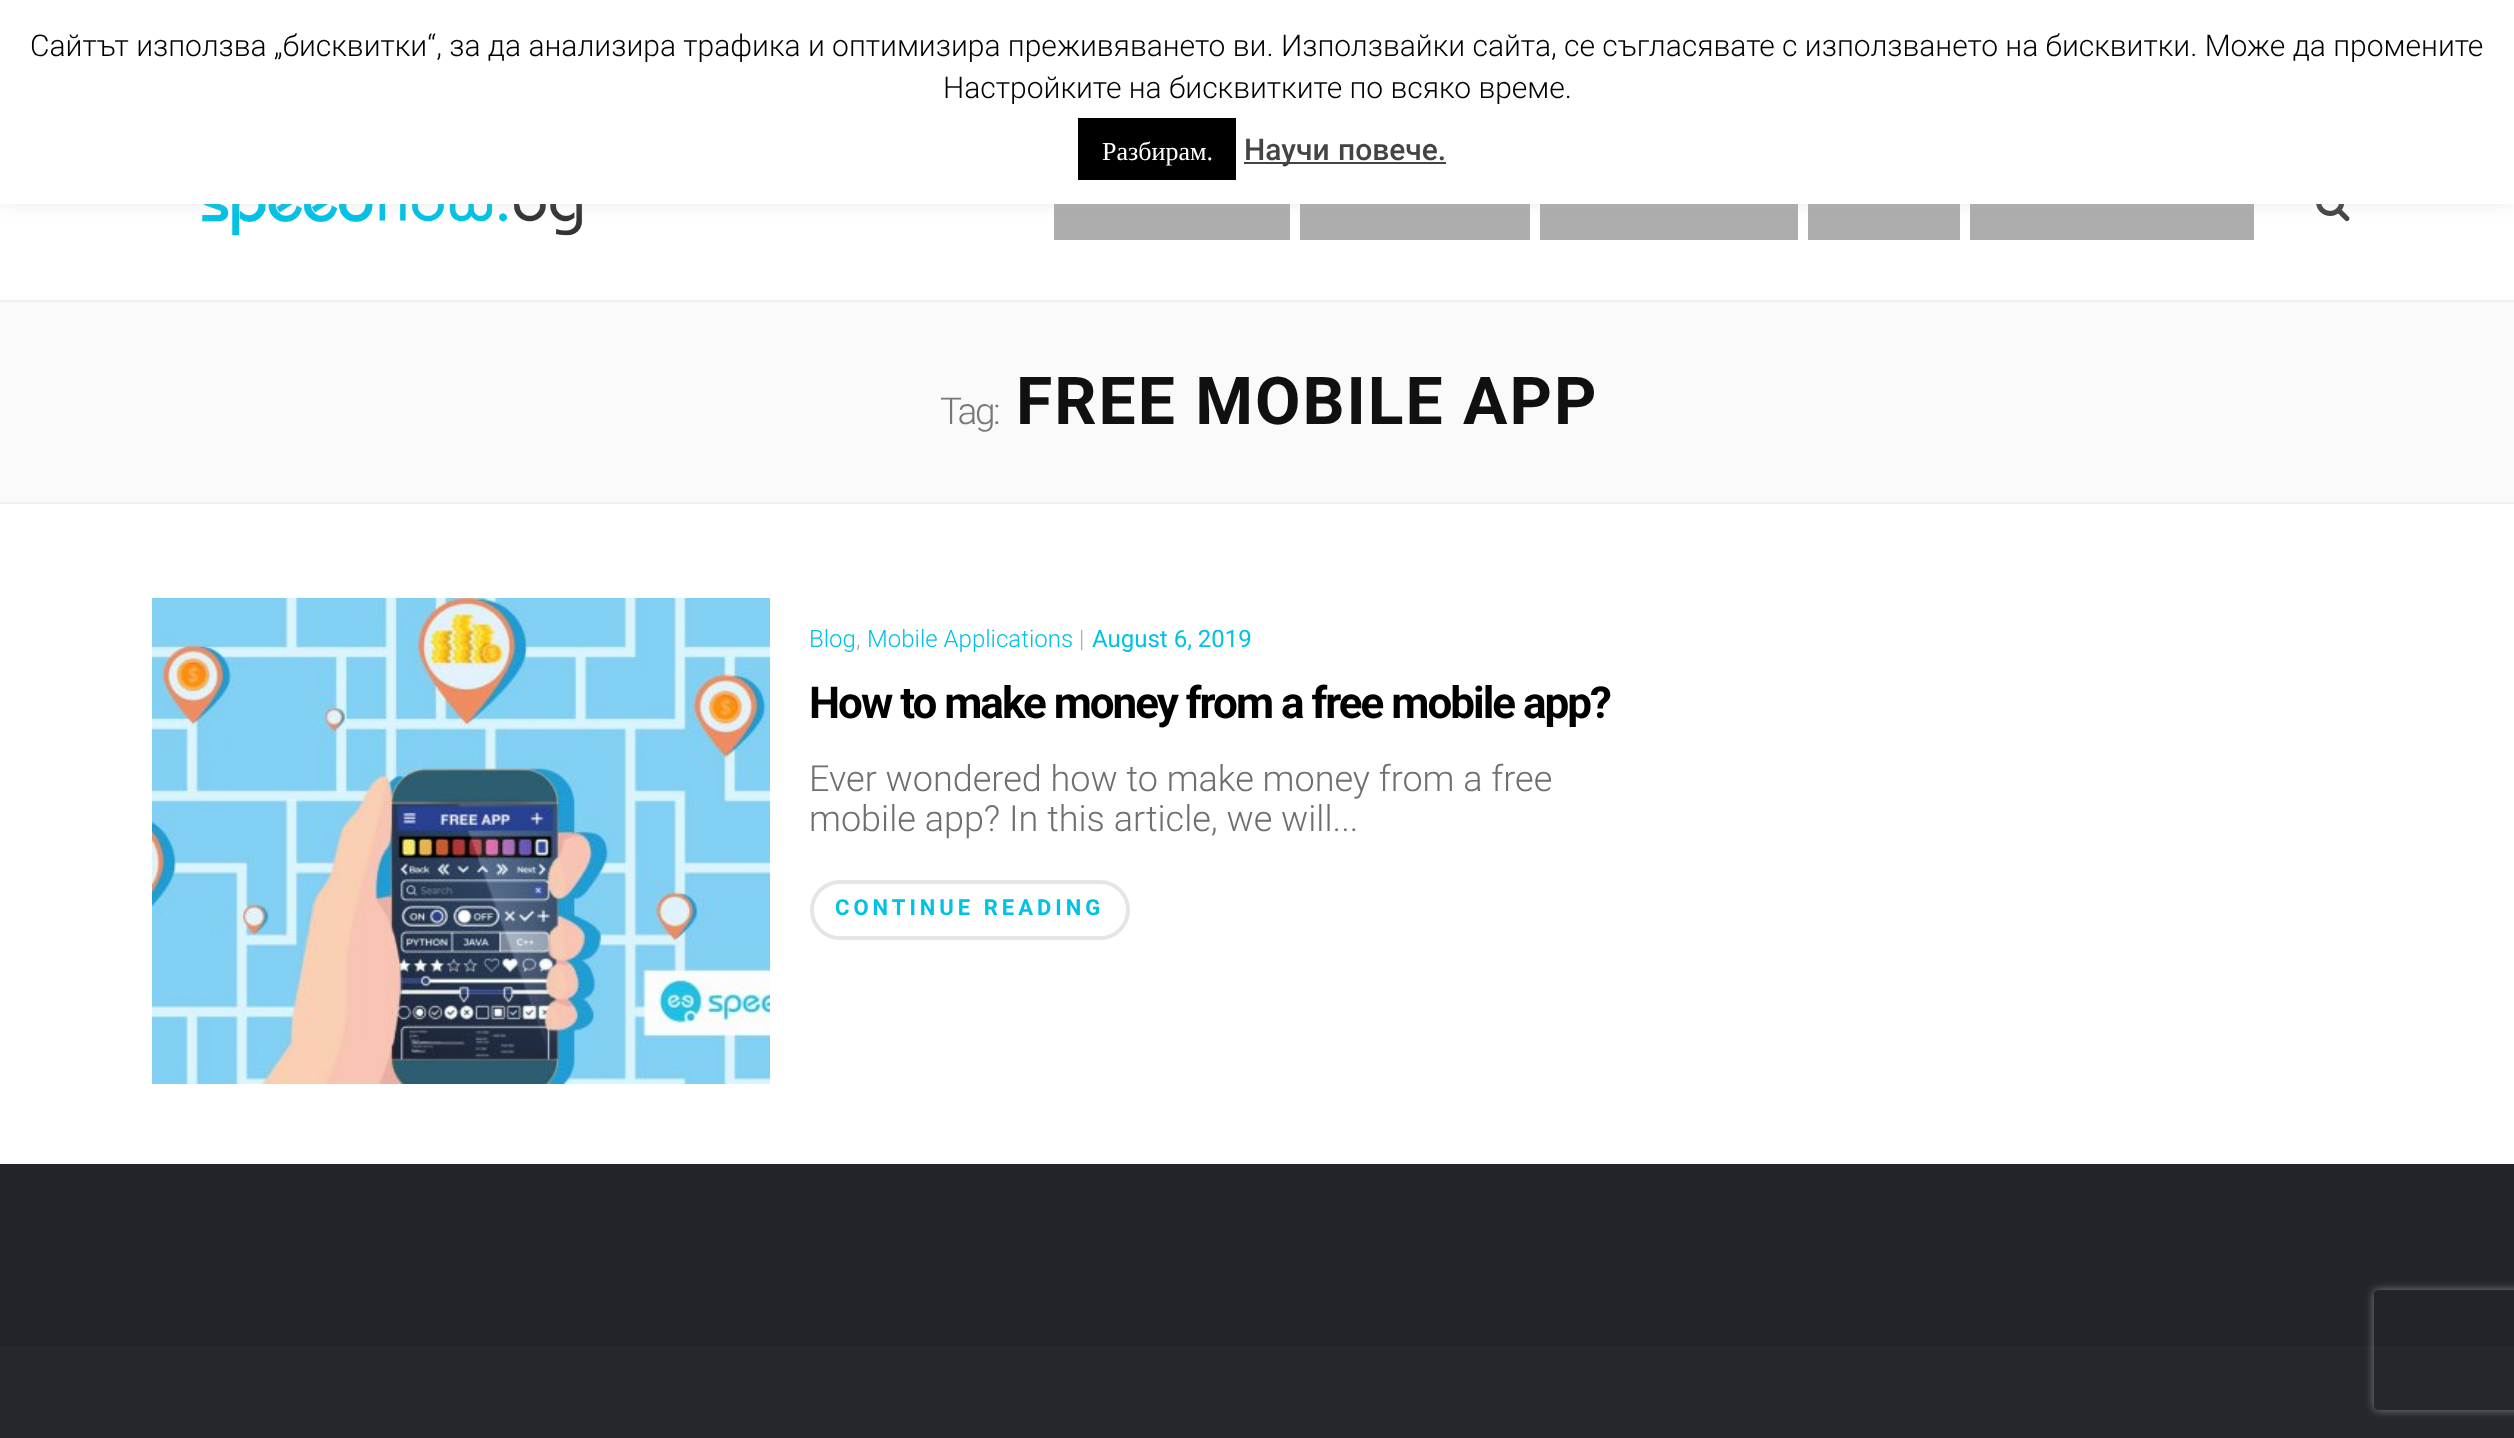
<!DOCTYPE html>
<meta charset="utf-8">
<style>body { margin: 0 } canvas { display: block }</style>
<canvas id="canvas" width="2514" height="1438"></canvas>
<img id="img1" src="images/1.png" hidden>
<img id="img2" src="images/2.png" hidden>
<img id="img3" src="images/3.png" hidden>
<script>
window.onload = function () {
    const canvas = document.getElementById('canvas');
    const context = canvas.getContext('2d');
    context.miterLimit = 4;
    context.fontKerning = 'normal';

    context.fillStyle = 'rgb(255, 255, 255)';
    context.fillRect(0, 0, 2514, 1438);
    context.drawImage(document.getElementById('img1'), 202, 204, 381, 32);
    context.fillStyle = 'rgb(173, 173, 173)';
    context.fillRect(1054, 204, 236, 36);
    context.fillRect(1300, 204, 230, 36);
    context.fillRect(1540, 204, 258, 36);
    context.fillRect(1808, 204, 152, 36);
    context.fillRect(1970, 204, 284, 36);
    context.drawImage(document.getElementById('img2'), 2316, 204, 34, 18);
    context.fillStyle = 'rgba(172, 171, 171, 0.3)';
    context.filter = 'blur(10px)';
    context.beginPath();
    context.rect(0, -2, 2514, 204);
    context.fill();
    context.filter = 'none';
    context.fillStyle = 'rgb(255, 255, 255)';
    context.fillRect(0, 0, 2514, 204);
    context.fillStyle = 'rgb(0, 0, 0)';
    context.fillRect(1078, 118, 158, 62);
    context.fillStyle = 'rgb(68, 68, 68)';
    context.fillRect(1244, 162, 202, 2);
    context.fillStyle = 'rgb(250, 250, 250)';
    context.fillRect(0, 302, 2514, 200);
    context.fillStyle = 'rgb(238, 238, 238)';
    context.fillRect(0, 300, 2514, 2);
    context.fillRect(0, 502, 2514, 2);
    context.drawImage(document.getElementById('img3'), 152, 598, 618, 486);
    context.beginPath();
    context.roundRect(812, 882, 316, 56, 28);
    context.strokeStyle = 'rgb(229, 229, 229)';
    context.lineWidth = 4;
    context.stroke();
    context.fillStyle = 'rgb(34, 36, 41)';
    context.fillRect(0, 1164, 2514, 182);
    context.fillStyle = 'rgb(37, 39, 45)';
    context.fillRect(0, 1346, 2514, 92);
    context.save();
    context.beginPath();
    context.moveTo(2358, 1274);
    context.lineTo(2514, 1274);
    context.lineTo(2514, 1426);
    context.lineTo(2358, 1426);
    context.closePath();
    context.moveTo(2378, 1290);
    context.lineTo(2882, 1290);
    context.bezierCurveTo(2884, 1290, 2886, 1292, 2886, 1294);
    context.lineTo(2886, 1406);
    context.bezierCurveTo(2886, 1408, 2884, 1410, 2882, 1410);
    context.lineTo(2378, 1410);
    context.bezierCurveTo(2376, 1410, 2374, 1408, 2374, 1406);
    context.lineTo(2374, 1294);
    context.bezierCurveTo(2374, 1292, 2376, 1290, 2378, 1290);
    context.closePath();
    context.clip('evenodd');
    context.fillStyle = 'rgb(128, 128, 128)';
    context.filter = 'blur(5px)';
    context.beginPath();
    context.roundRect(2374, 1290, 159, 120, 4);
    context.fill();
    context.filter = 'none';
    context.restore();
    context.font = '300 30px Roboto';
    context.fillStyle = 'rgb(0, 0, 0)';
    context.fillText('Сайтът използва „бисквитки“, за да анализира трафика и оптимизира преживяването ви. Използвайки сайта, се съгласявате с използването на бисквитки. Може да промените', 30, 56);
    context.fillText('Настройките на бисквитките по всяко време.', 943, 98);
    context.font = '26px Liberation Serif';
    context.fillStyle = 'rgb(255, 255, 255)';
    context.fillText('Разбирам.', 1102, 160);
    context.wordSpacing = '1px';
    context.font = '500 30px Roboto';
    context.fillStyle = 'rgb(68, 68, 68)';
    context.fillText('Научи повече.', 1244, 160);
    context.letterSpacing = '-2.5px';
    context.wordSpacing = '0px';
    context.font = '300 37px Roboto';
    context.fillStyle = 'rgb(119, 119, 119)';
    context.fillText('Tag:', 940, 424);
    context.letterSpacing = '2px';
    context.font = 'bold 66px Roboto';
    context.fillStyle = 'rgb(16, 16, 16)';
    context.fillText('FREE MOBILE APP', 1016, 424);
    context.letterSpacing = '0px';
    context.font = '300 24px Roboto';
    context.fillStyle = 'rgb(0, 194, 229)';
    context.fillText('Blog', 809, 647);
    context.fillStyle = 'rgb(161, 165, 173)';
    context.fillText(',', 856, 647);
    context.fillStyle = 'rgb(0, 194, 229)';
    context.fillText('Mobile Applications', 867, 647);
    context.fillStyle = 'rgb(161, 165, 173)';
    context.fillText('|', 1079, 647);
    context.font = '24px Roboto';
    context.fillStyle = 'rgb(0, 194, 229)';
    context.fillText('August 6, 2019', 1092, 647);
    context.letterSpacing = '-2px';
    context.font = 'bold 44px Roboto';
    context.fillStyle = 'rgb(0, 0, 0)';
    context.fillText('How to make money from a free mobile app?', 809, 718);
    context.letterSpacing = '0px';
    context.font = '300 36px Roboto';
    context.fillStyle = 'rgb(111, 111, 111)';
    context.fillText('Ever wondered how to make money from a free', 809, 791);
    context.fillText('mobile app? In this article, we will...', 809, 831);
    context.letterSpacing = '4px';
    context.font = 'bold 22px Roboto';
    context.fillStyle = 'rgb(0, 194, 229)';
    context.fillText('CONTINUE READING', 835, 915);
};
</script>
